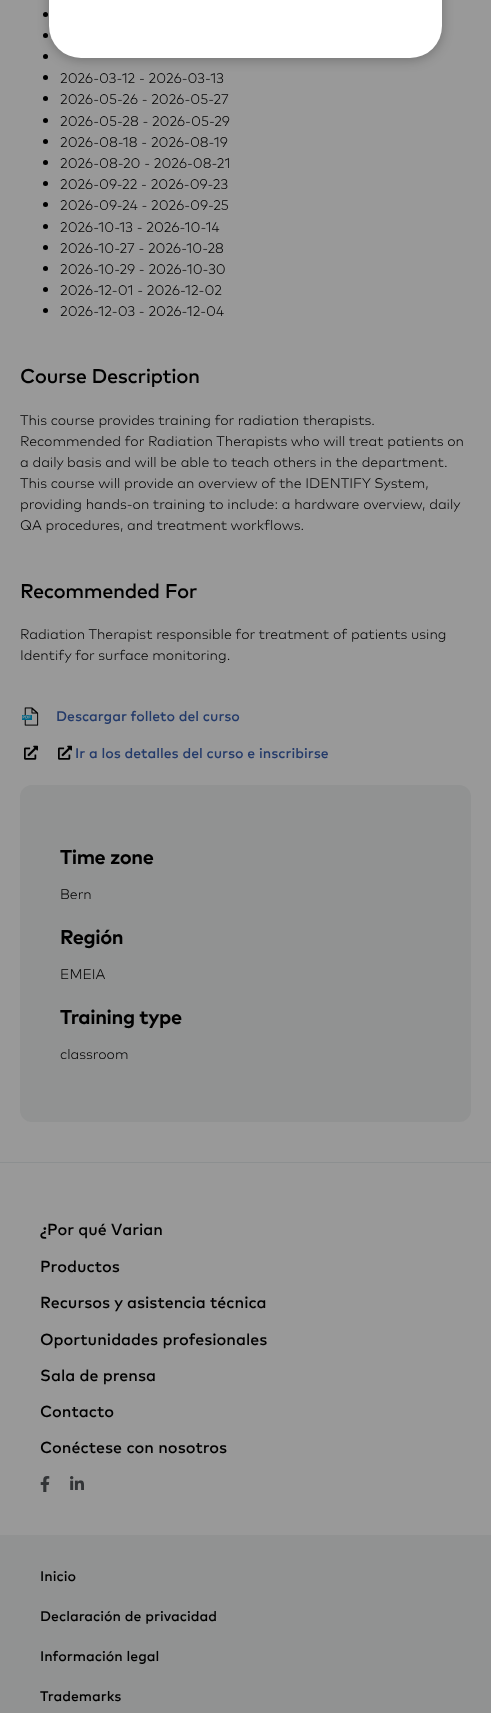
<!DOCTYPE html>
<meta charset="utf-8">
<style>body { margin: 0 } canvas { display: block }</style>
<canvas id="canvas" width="491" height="1713"></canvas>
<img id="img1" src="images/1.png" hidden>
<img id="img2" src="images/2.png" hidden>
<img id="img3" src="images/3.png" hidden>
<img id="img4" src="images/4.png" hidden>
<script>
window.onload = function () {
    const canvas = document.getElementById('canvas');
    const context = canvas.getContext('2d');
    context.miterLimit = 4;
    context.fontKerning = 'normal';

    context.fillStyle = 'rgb(153, 153, 153)';
    context.fillRect(0, 0, 491, 1713);
    context.fillStyle = 'rgb(0, 0, 0)';
    context.beginPath();
    context.arc(45.5, 14.5, 2.5, 0, 2 * Math.PI);
    context.fill();
    context.beginPath();
    context.arc(45.5, 35.5, 2.5, 0, 2 * Math.PI);
    context.fill();
    context.beginPath();
    context.arc(45.5, 56.5, 2.5, 0, 2 * Math.PI);
    context.fill();
    context.beginPath();
    context.arc(45.5, 77.5, 2.5, 0, 2 * Math.PI);
    context.fill();
    context.fillStyle = 'rgba(0, 0, 0, 0.25)';
    context.filter = 'blur(6px)';
    context.beginPath();
    context.roundRect(49, -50, 393, 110, 32);
    context.fill();
    context.filter = 'none';
    context.fillStyle = 'rgb(255, 255, 255)';
    context.beginPath();
    context.roundRect(49, -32, 393, 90, 32);
    context.fill();
    context.fillStyle = 'rgb(0, 0, 0)';
    context.beginPath();
    context.arc(45.5, 98.5, 2.5, 0, 2 * Math.PI);
    context.fill();
    context.beginPath();
    context.arc(45.5, 120.5, 2.5, 0, 2 * Math.PI);
    context.fill();
    context.beginPath();
    context.arc(45.5, 141.5, 2.5, 0, 2 * Math.PI);
    context.fill();
    context.beginPath();
    context.arc(45.5, 162.5, 2.5, 0, 2 * Math.PI);
    context.fill();
    context.beginPath();
    context.arc(45.5, 183.5, 2.5, 0, 2 * Math.PI);
    context.fill();
    context.beginPath();
    context.arc(45.5, 204.5, 2.5, 0, 2 * Math.PI);
    context.fill();
    context.beginPath();
    context.arc(45.5, 226.5, 2.5, 0, 2 * Math.PI);
    context.fill();
    context.beginPath();
    context.arc(45.5, 247.5, 2.5, 0, 2 * Math.PI);
    context.fill();
    context.beginPath();
    context.arc(45.5, 268.5, 2.5, 0, 2 * Math.PI);
    context.fill();
    context.beginPath();
    context.arc(45.5, 289.5, 2.5, 0, 2 * Math.PI);
    context.fill();
    context.beginPath();
    context.arc(45.5, 310.5, 2.5, 0, 2 * Math.PI);
    context.fill();
    context.drawImage(document.getElementById('img1'), 22, 707, 17, 19);
    context.drawImage(document.getElementById('img2'), 24, 745, 14, 15);
    context.drawImage(document.getElementById('img2'), 58, 745, 14, 15);
    context.fillStyle = 'rgb(145, 146, 146)';
    context.beginPath();
    context.roundRect(20, 785, 451, 337, 12);
    context.fill();
    context.fillStyle = 'rgb(140, 143, 144)';
    context.fillRect(0, 1162, 491, 1);
    context.drawImage(document.getElementById('img3'), 40, 1476, 10, 16);
    context.drawImage(document.getElementById('img4'), 70, 1476, 14, 14);
    context.fillStyle = 'rgb(145, 146, 146)';
    context.fillRect(0, 1535, 491, 178);
    context.font = '300 14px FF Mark';
    context.fillStyle = 'rgb(0, 0, 0)';
    context.fillText('2026-03-12 - 2026-03-13', 60, 83);
    context.fillText('2026-05-26 - 2026-05-27', 60, 104);
    context.fillText('2026-05-28 - 2026-05-29', 60, 126);
    context.fillText('2026-08-18 - 2026-08-19', 60, 147);
    context.fillText('2026-08-20 - 2026-08-21', 60, 168);
    context.fillText('2026-09-22 - 2026-09-23', 60, 189);
    context.fillText('2026-09-24 - 2026-09-25', 60, 210);
    context.fillText('2026-10-13 - 2026-10-14', 60, 232);
    context.fillText('2026-10-27 - 2026-10-28', 60, 253);
    context.fillText('2026-10-29 - 2026-10-30', 60, 274);
    context.fillText('2026-12-01 - 2026-12-02', 60, 295);
    context.fillText('2026-12-03 - 2026-12-04', 60, 316);
    context.letterSpacing = '-0.4px';
    context.font = '500 20px FF Mark';
    context.fillText('Course Description', 20, 383);
    context.letterSpacing = '0px';
    context.font = '300 14px FF Mark';
    context.fillText('This course provides training for radiation therapists.', 20, 425);
    context.fillText('Recommended for Radiation Therapists who will treat patients on', 20, 446);
    context.fillText('a daily basis and will be able to teach others in the department.', 20, 467);
    context.fillText('This course will provide an overview of the IDENTIFY System,', 20, 488);
    context.fillText('providing hands-on training to include: a hardware overview, daily', 20, 509);
    context.fillText('QA procedures, and treatment workflows.', 20, 530);
    context.letterSpacing = '-0.4px';
    context.font = '500 20px FF Mark';
    context.fillText('Recommended For', 20, 598);
    context.letterSpacing = '0px';
    context.font = '300 14px FF Mark';
    context.fillText('Radiation Therapist responsible for treatment of patients using', 20, 639);
    context.fillText('Identify for surface monitoring.', 20, 660);
    context.font = '500 14px FF Mark';
    context.fillStyle = 'rgb(35, 58, 106)';
    context.fillText('Descargar folleto del curso', 56, 721);
    context.fillText('Ir a los detalles del curso e inscribirse', 75, 758);
    context.letterSpacing = '-0.4px';
    context.font = 'bold 20px FF Mark';
    context.fillStyle = 'rgb(0, 0, 0)';
    context.fillText('Time zone', 60, 864);
    context.letterSpacing = '0px';
    context.font = '300 14px FF Mark';
    context.fillText('Bern', 60, 899);
    context.letterSpacing = '-0.4px';
    context.font = 'bold 20px FF Mark';
    context.fillText('Región', 60, 944);
    context.letterSpacing = '0px';
    context.font = '300 14px FF Mark';
    context.fillText('EMEIA', 60, 979);
    context.letterSpacing = '-0.4px';
    context.font = 'bold 20px FF Mark';
    context.fillText('Training type', 60, 1024);
    context.letterSpacing = '0px';
    context.font = '300 14px FF Mark';
    context.fillText('classroom', 60, 1059);
    context.font = '500 16px FF Mark';
    context.fillText('¿Por qué Varian', 40, 1235);
    context.fillText('Productos', 40, 1272);
    context.fillText('Recursos y asistencia técnica', 40, 1308);
    context.fillText('Oportunidades profesionales', 40, 1345);
    context.fillText('Sala de prensa', 40, 1381);
    context.fillText('Contacto', 40, 1417);
    context.fillText('Conéctese con nosotros', 40, 1453);
    context.font = '500 14px FF Mark';
    context.fillText('Inicio', 40, 1581);
    context.fillText('Declaración de privacidad', 40, 1621);
    context.fillText('Información legal', 40, 1661);
    context.fillText('Trademarks', 40, 1701);
};
</script>
